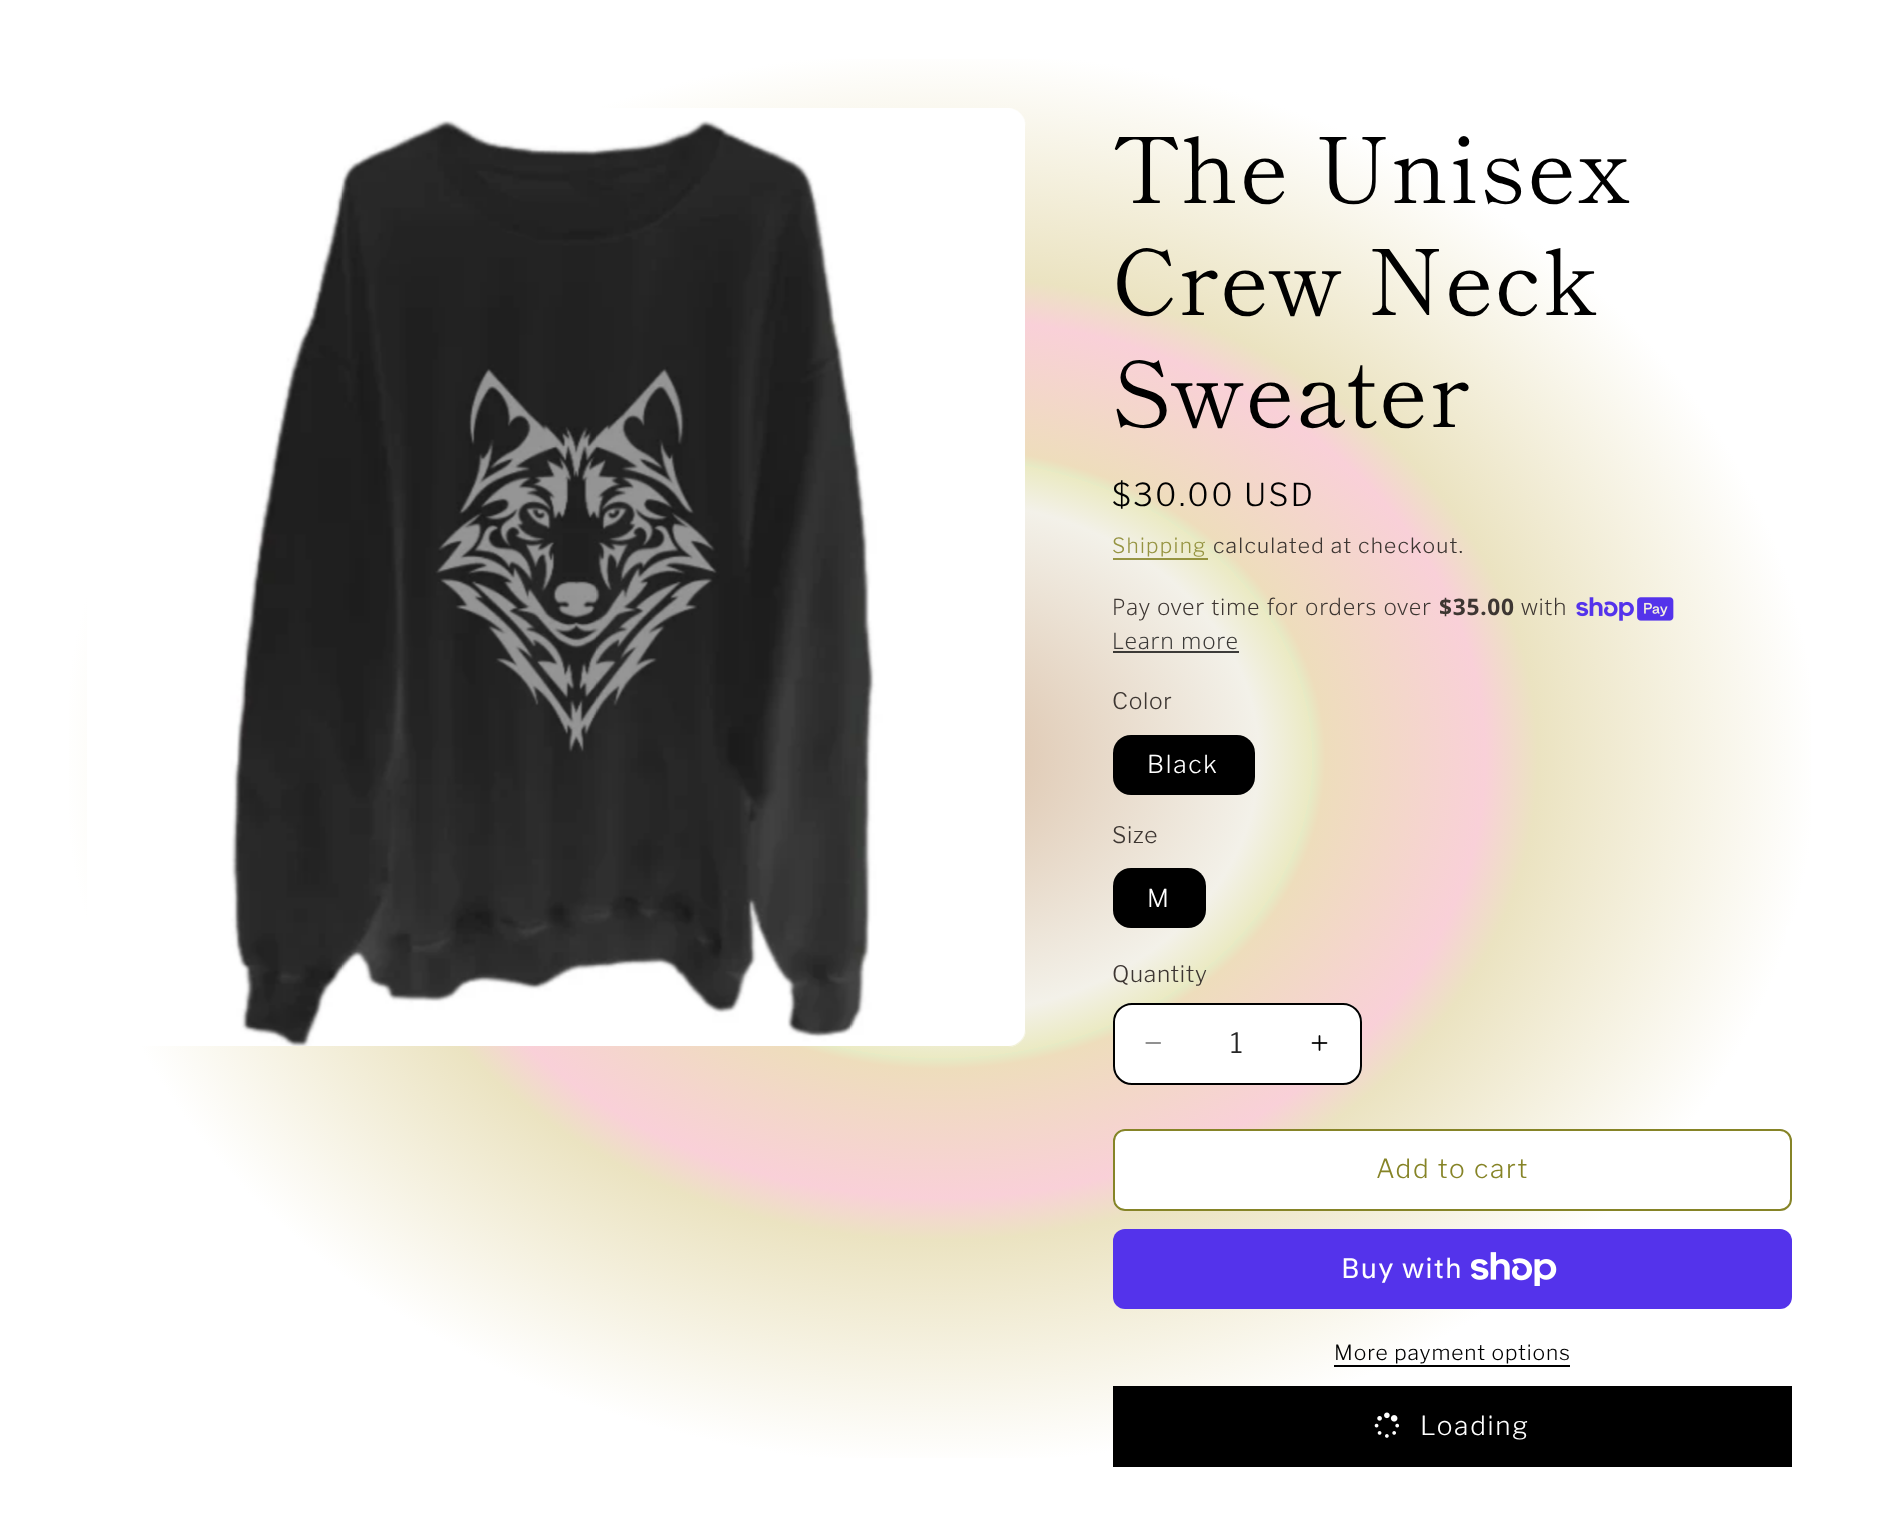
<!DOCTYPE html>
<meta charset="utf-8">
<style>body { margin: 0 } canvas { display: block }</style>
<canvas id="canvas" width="1879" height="1514"></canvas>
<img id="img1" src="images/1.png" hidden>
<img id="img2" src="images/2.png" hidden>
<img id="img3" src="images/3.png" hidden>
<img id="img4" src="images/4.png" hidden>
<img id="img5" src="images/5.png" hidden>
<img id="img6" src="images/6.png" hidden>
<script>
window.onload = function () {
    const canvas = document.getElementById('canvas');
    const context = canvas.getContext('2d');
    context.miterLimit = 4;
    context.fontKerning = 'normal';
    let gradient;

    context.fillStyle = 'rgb(255, 255, 255)';
    context.fillRect(0, 0, 1879, 1514);
    gradient = context.createRadialGradient(940, 939.72, 0, 940, 939.72, 1329);
    gradient.addColorStop(0, 'rgb(220, 193, 169)');
    gradient.addColorStop(0.24, 'rgb(243, 241, 233)');
    gradient.addColorStop(0.28, 'rgb(235, 234, 195)');
    gradient.addColorStop(0.28, 'rgb(230, 235, 197)');
    gradient.addColorStop(0.29, 'rgb(238, 221, 188)');
    gradient.addColorStop(0.41, 'rgb(249, 208, 216)');
    gradient.addColorStop(0.45, 'rgb(235, 227, 193)');
    gradient.addColorStop(0.66, 'rgb(255, 255, 255)');
    context.fillStyle = gradient;
    context.beginPath();
    context.rect(69, 59, 1742, 867);
    context.save();
    context.clip();
    context.scale(1, 1072 / 1329);
    context.fillRect(0, 0, 1879, 1877);
    context.restore();
    gradient = context.createRadialGradient(940, 939.72, 0, 940, 939.72, 1329);
    gradient.addColorStop(0, 'rgba(219, 192, 167, 0.98)');
    gradient.addColorStop(0.24, 'rgb(243, 241, 233)');
    gradient.addColorStop(0.28, 'rgb(235, 234, 195)');
    gradient.addColorStop(0.28, 'rgb(230, 235, 197)');
    gradient.addColorStop(0.29, 'rgb(238, 221, 188)');
    gradient.addColorStop(0.41, 'rgb(249, 208, 216)');
    gradient.addColorStop(0.45, 'rgb(235, 227, 193)');
    gradient.addColorStop(0.66, 'rgb(255, 255, 255)');
    context.fillStyle = gradient;
    context.beginPath();
    context.rect(94, 457, 1692, 1001);
    context.save();
    context.clip();
    context.scale(1, 1072 / 1329);
    context.fillRect(0, 0, 1879, 1877);
    context.restore();
    context.fillStyle = 'rgb(255, 255, 255)';
    context.beginPath();
    context.roundRect(88, 109, 938, 938, 18);
    context.fill();
    gradient = context.createRadialGradient(940, 939.72, 0, 940, 939.72, 1329);
    gradient.addColorStop(0, 'rgba(219, 192, 167, 0.98)');
    gradient.addColorStop(0.24, 'rgb(243, 241, 233)');
    gradient.addColorStop(0.28, 'rgb(235, 234, 195)');
    gradient.addColorStop(0.28, 'rgb(230, 235, 197)');
    gradient.addColorStop(0.29, 'rgb(238, 221, 188)');
    gradient.addColorStop(0.41, 'rgb(249, 208, 216)');
    gradient.addColorStop(0.45, 'rgb(235, 227, 193)');
    gradient.addColorStop(0.66, 'rgb(255, 255, 255)');
    context.fillStyle = gradient;
    context.beginPath();
    context.roundRect(88, 109, 938, 938, 18);
    context.save();
    context.clip();
    context.scale(1, 1072 / 1329);
    context.fillRect(0, 0, 1879, 1877);
    context.restore();
    context.drawImage(document.getElementById('img1'), 87, 108, 938, 938);
    context.fillStyle = 'rgba(134, 132, 39, 0.85)';
    context.fillRect(1113, 558, 95, 2);
    context.drawImage(document.getElementById('img2'), 1576, 597, 98, 24);
    context.fillStyle = 'rgba(0, 0, 0, 0.75)';
    context.fillRect(1113, 651, 126, 2);
    context.fillStyle = 'rgb(0, 0, 0)';
    context.beginPath();
    context.roundRect(1113, 735, 142, 60, 18);
    context.fill();
    context.beginPath();
    context.roundRect(1113, 868, 93, 60, 18);
    context.fill();
    context.fillStyle = 'rgb(255, 255, 255)';
    context.beginPath();
    context.roundRect(1113, 1003, 249, 82, 19);
    context.fill();
    context.drawImage(document.getElementById('img3'), 1145, 1042, 16, 2);
    context.drawImage(document.getElementById('img4'), 1311, 1035, 17, 16);
    context.beginPath();
    context.roundRect(1114, 1004, 247, 80, 18);
    context.strokeStyle = 'rgb(0, 0, 0)';
    context.lineWidth = 2;
    context.stroke();
    context.beginPath();
    context.roundRect(1113, 1129, 679, 82, 12);
    context.fill();
    context.beginPath();
    context.roundRect(1114, 1130, 677, 80, 11);
    context.strokeStyle = 'rgb(255, 255, 255)';
    context.stroke();
    context.beginPath();
    context.roundRect(1114, 1130, 677, 80, 11);
    context.strokeStyle = 'rgb(134, 132, 39)';
    context.stroke();
    context.fillStyle = 'rgb(84, 51, 235)';
    context.beginPath();
    context.roundRect(1113, 1229, 679, 80, 12);
    context.fill();
    context.drawImage(document.getElementById('img5'), 1471, 1252, 86, 34);
    context.fillStyle = 'rgb(0, 0, 0)';
    context.fillRect(1334, 1365, 236, 2);
    context.fillRect(1113, 1386, 679, 81);
    context.drawImage(document.getElementById('img6'), 1374, 1412, 25, 26);
    context.letterSpacing = '1.4px';
    context.font = '91px Shippori Mincho';
    context.fillText('The Unisex', 1112, 203);
    context.fillText('Crew Neck', 1112, 315);
    context.fillText('Sweater', 1112, 427);
    context.letterSpacing = '2.25px';
    context.font = '300 31.5px Libre Franklin';
    context.fillText('$30.00 USD', 1112, 506);
    context.letterSpacing = '1.25px';
    context.font = '300 21px Libre Franklin';
    context.fillStyle = 'rgb(150, 148, 66)';
    context.fillText('Shipping', 1112, 553);
    context.fillStyle = 'rgb(61, 54, 50)';
    context.fillText('calculated at checkout.', 1213, 553);
    context.letterSpacing = '0.7px';
    context.font = '300 22.75px Noto Sans';
    context.fillText('Pay over time for orders over', 1112, 615);
    context.font = 'bold 22.75px Noto Sans';
    context.fillText('$35.00', 1439, 615);
    context.font = '300 22.75px Noto Sans';
    context.fillText('with', 1521, 615);
    context.fillStyle = 'rgb(60, 58, 56)';
    context.fillText('Learn more', 1112, 649);
    context.font = '300 22.75px Libre Franklin';
    context.fillStyle = 'rgb(61, 54, 50)';
    context.fillText('Color', 1112, 709);
    context.letterSpacing = '1.75px';
    context.font = '300 24.5px Libre Franklin';
    context.fillStyle = 'rgb(255, 255, 255)';
    context.fillText('Black', 1147, 773);
    context.letterSpacing = '0.7px';
    context.font = '300 22.75px Libre Franklin';
    context.fillStyle = 'rgb(61, 54, 50)';
    context.fillText('Size', 1112, 843);
    context.letterSpacing = '1.75px';
    context.font = '300 24.5px Libre Franklin';
    context.fillStyle = 'rgb(255, 255, 255)';
    context.fillText('M', 1147, 907);
    context.letterSpacing = '0.7px';
    context.font = '300 22.75px Libre Franklin';
    context.fillStyle = 'rgb(61, 54, 50)';
    context.fillText('Quantity', 1112, 982);
    context.letterSpacing = '0px';
    context.font = '300 28px Libre Franklin';
    context.fillStyle = 'rgb(38, 38, 38)';
    context.fillText('1', 1230, 1053);
    context.letterSpacing = '1.75px';
    context.font = '300 26.25px Libre Franklin';
    context.fillStyle = 'rgb(134, 132, 39)';
    context.fillText('Add to cart', 1376, 1178);
    context.letterSpacing = '1px';
    context.font = '28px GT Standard';
    context.fillStyle = 'rgb(255, 255, 255)';
    context.fillText('Buy with', 1341, 1278);
    context.letterSpacing = '0.9px';
    context.font = '300 21px Libre Franklin';
    context.fillStyle = 'rgb(0, 0, 0)';
    context.fillText('More payment options', 1334, 1360);
    context.letterSpacing = '1.75px';
    context.font = '300 26.25px Libre Franklin';
    context.fillStyle = 'rgb(255, 255, 255)';
    context.fillText('Loading', 1420, 1435);
};
</script>
